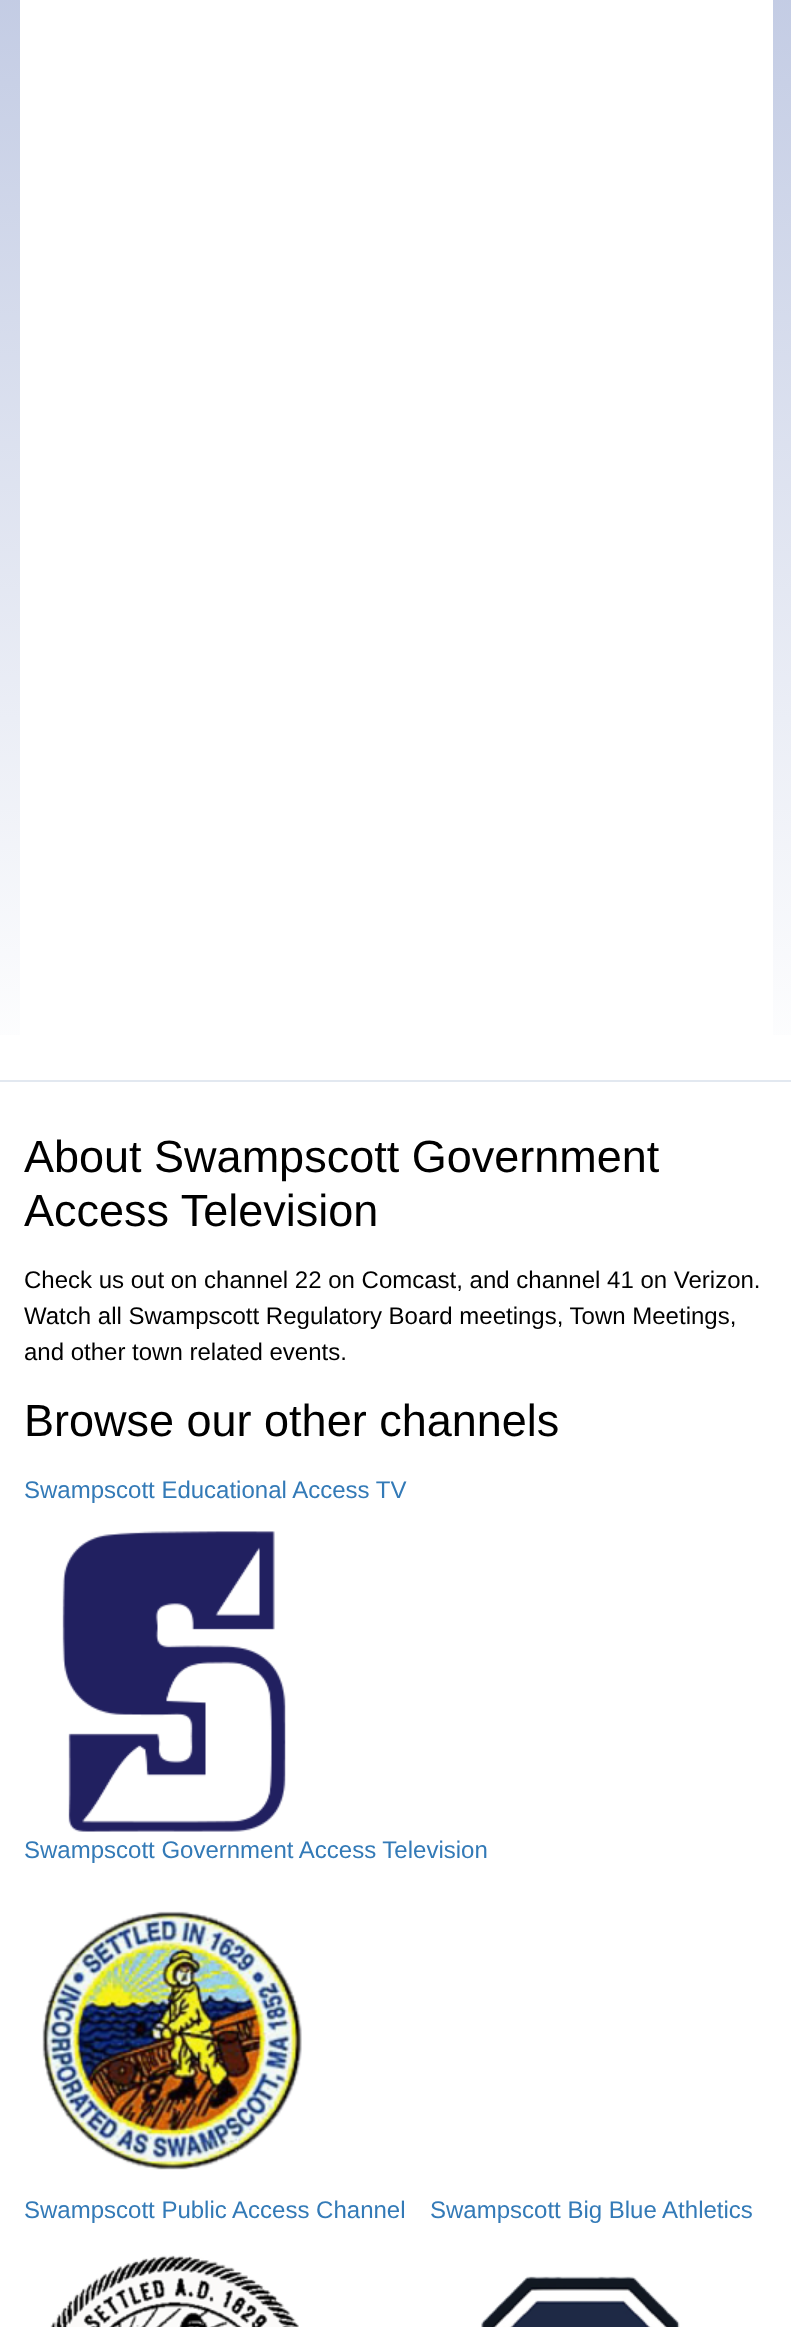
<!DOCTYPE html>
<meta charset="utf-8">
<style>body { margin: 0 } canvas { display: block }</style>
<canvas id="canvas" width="791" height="2327"></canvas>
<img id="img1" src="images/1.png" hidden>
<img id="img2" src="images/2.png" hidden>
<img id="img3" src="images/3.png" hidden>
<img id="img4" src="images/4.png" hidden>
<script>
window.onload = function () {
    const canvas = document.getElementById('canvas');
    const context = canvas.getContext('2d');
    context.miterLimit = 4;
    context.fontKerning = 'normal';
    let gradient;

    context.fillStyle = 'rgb(255, 255, 255)';
    context.fillRect(0, 0, 791, 2327);
    gradient = context.createLinearGradient(396, -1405, 396, 1080);
    gradient.addColorStop(0, 'rgb(118, 138, 193)');
    gradient.addColorStop(1, 'rgb(255, 255, 255)');
    context.fillStyle = gradient;
    context.fillRect(0, 0, 791, 1035);
    context.fillStyle = 'rgb(255, 255, 255)';
    context.fillRect(20, 0, 753, 1035);
    context.fillStyle = 'rgb(226, 232, 240)';
    context.fillRect(0, 1080, 791, 2);
    context.drawImage(document.getElementById('img1'), 62, 1531, 224, 301);
    context.drawImage(document.getElementById('img2'), 42, 1911, 260, 259);
    context.drawImage(document.getElementById('img3'), 50, 2255, 249, 72);
    context.drawImage(document.getElementById('img4'), 481, 2276, 199, 51);
    context.font = '45px Liberation Sans';
    context.fillStyle = 'rgb(0, 0, 0)';
    context.fillText('About Swampscott Government', 24, 1172);
    context.fillText('Access Television', 24, 1226);
    context.font = '24px Liberation Sans';
    context.fillText('Check us out on channel 22 on Comcast, and channel 41 on Verizon.', 24, 1288);
    context.fillText('Watch all Swampscott Regulatory Board meetings, Town Meetings,', 24, 1324);
    context.fillText('and other town related events.', 24, 1360);
    context.font = '45px Liberation Sans';
    context.fillText('Browse our other channels', 24, 1436);
    context.font = '24px Liberation Sans';
    context.fillStyle = 'rgb(51, 122, 183)';
    context.fillText('Swampscott Educational Access TV', 24, 1498);
    context.fillText('Swampscott Government Access Television', 24, 1858);
    context.fillText('Swampscott Public Access Channel', 24, 2218);
    context.fillText('Swampscott Big Blue Athletics', 430, 2218);
};
</script>
